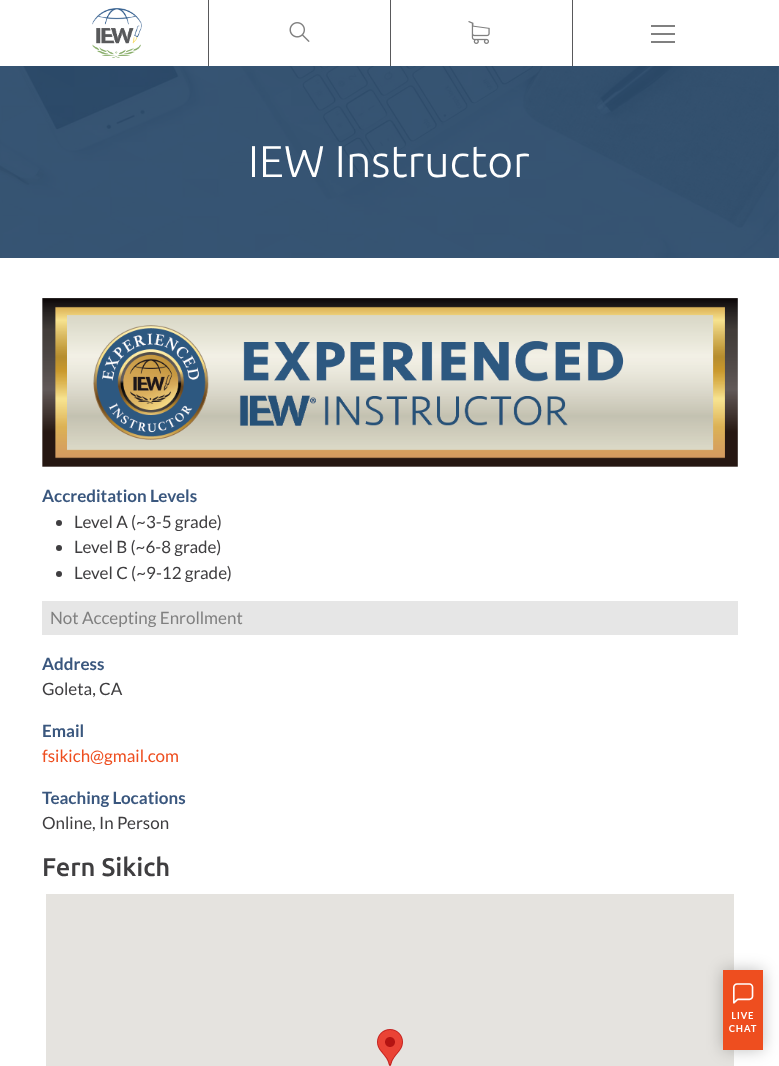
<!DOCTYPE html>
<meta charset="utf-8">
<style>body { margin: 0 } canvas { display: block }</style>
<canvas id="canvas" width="779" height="1066"></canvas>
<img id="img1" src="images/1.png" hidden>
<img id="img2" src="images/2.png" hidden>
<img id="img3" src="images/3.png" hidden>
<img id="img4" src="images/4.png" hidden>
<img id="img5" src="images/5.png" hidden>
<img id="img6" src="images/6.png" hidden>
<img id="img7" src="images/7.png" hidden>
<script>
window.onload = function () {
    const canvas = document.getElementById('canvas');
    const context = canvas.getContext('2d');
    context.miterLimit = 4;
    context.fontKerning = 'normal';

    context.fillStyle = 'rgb(255, 255, 255)';
    context.fillRect(0, 0, 779, 1066);
    context.drawImage(document.getElementById('img1'), 92, 8, 50, 50);
    context.fillStyle = 'rgb(89, 89, 91)';
    context.fillRect(208, 0, 1, 66);
    context.drawImage(document.getElementById('img2'), 289, 22, 21, 20);
    context.fillRect(390, 0, 1, 66);
    context.drawImage(document.getElementById('img3'), 468, 21, 22, 23);
    context.fillRect(572, 0, 1, 66);
    context.fillStyle = 'rgb(128, 128, 128)';
    context.fillRect(651, 25, 24, 2);
    context.fillRect(651, 33, 24, 2);
    context.fillRect(651, 41, 24, 2);
    context.drawImage(document.getElementById('img4'), 0, 66, 779, 192);
    context.drawImage(document.getElementById('img5'), 42, 298, 696, 169);
    context.fillStyle = 'rgb(63, 62, 64)';
    context.beginPath();
    context.arc(59, 523, 3, 0, 2 * Math.PI);
    context.fill();
    context.beginPath();
    context.arc(59, 548, 3, 0, 2 * Math.PI);
    context.fill();
    context.beginPath();
    context.arc(59, 574, 3, 0, 2 * Math.PI);
    context.fill();
    context.fillStyle = 'rgb(230, 230, 230)';
    context.fillRect(42, 601, 696, 34);
    context.fillStyle = 'rgb(229, 227, 223)';
    context.fillRect(46, 894, 688, 172);
    context.drawImage(document.getElementById('img6'), 377, 1029, 26, 37);
    context.fillStyle = 'rgba(0, 0, 0, 0.25)';
    context.filter = 'blur(8px)';
    context.beginPath();
    context.rect(723, 970, 40, 80);
    context.fill();
    context.filter = 'none';
    context.fillStyle = 'rgb(238, 78, 31)';
    context.fillRect(723, 970, 40, 80);
    context.drawImage(document.getElementById('img7'), 729, 983, 28, 49);
    context.font = '300 44.5px Ubuntu';
    context.fillStyle = 'rgb(255, 255, 255)';
    context.fillText('IEW Instructor', 248, 177);
    context.font = 'bold 17px Lato';
    context.fillStyle = 'rgb(58, 87, 126)';
    context.fillText('Accreditation Levels', 42, 502);
    context.font = '17px Lato';
    context.fillStyle = 'rgb(63, 62, 64)';
    context.fillText('Level A (~3-5 grade)', 74, 528);
    context.fillText('Level B (~6-8 grade)', 74, 553);
    context.fillText('Level C (~9-12 grade)', 74, 579);
    context.fillStyle = 'rgb(128, 128, 128)';
    context.fillText('Not Accepting Enrollment', 50, 624);
    context.font = 'bold 17px Lato';
    context.fillStyle = 'rgb(58, 87, 126)';
    context.fillText('Address', 42, 670);
    context.font = '17px Lato';
    context.fillStyle = 'rgb(63, 62, 64)';
    context.fillText('Goleta, CA', 42, 695);
    context.font = 'bold 17px Lato';
    context.fillStyle = 'rgb(58, 87, 126)';
    context.fillText('Email', 42, 737);
    context.font = '17px Lato';
    context.fillStyle = 'rgb(238, 78, 31)';
    context.fillText('fsikich@gmail.com', 42, 762);
    context.font = 'bold 17px Lato';
    context.fillStyle = 'rgb(58, 87, 126)';
    context.fillText('Teaching Locations', 42, 804);
    context.font = '17px Lato';
    context.fillStyle = 'rgb(63, 62, 64)';
    context.fillText('Online, In Person', 42, 829);
    context.font = '500 25.5px Ubuntu';
    context.fillText('Fern Sikich', 42, 876);
};
</script>
